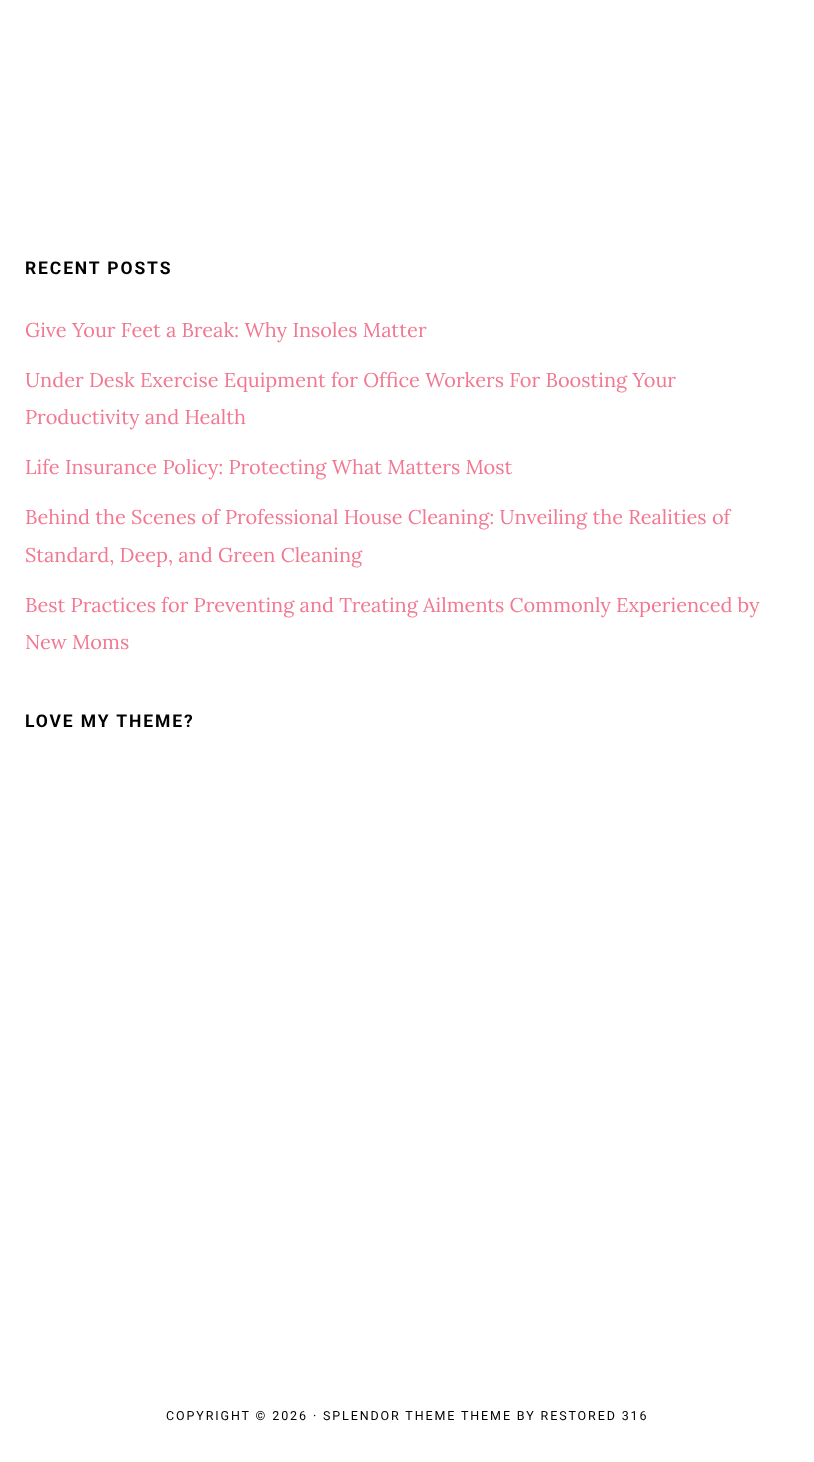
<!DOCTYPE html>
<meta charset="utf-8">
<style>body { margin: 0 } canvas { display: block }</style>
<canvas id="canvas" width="814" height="1462"></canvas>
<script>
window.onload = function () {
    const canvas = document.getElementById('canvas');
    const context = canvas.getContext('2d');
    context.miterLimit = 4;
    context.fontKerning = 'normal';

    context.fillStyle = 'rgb(255, 255, 255)';
    context.fillRect(0, 0, 814, 1462);
    context.letterSpacing = '1.88px';
    context.font = 'bold 17.5px Roboto';
    context.fillStyle = 'rgb(0, 0, 0)';
    context.fillText('RECENT POSTS', 25, 274);
    context.letterSpacing = '0px';
    context.font = '20px Lora';
    context.fillStyle = 'rgb(242, 119, 144)';
    context.fillText('Give Your Feet a Break: Why Insoles Matter', 25, 337);
    context.fillText('Under Desk Exercise Equipment for Office Workers For Boosting Your', 25, 387);
    context.fillText('Productivity and Health', 25, 424);
    context.fillText('Life Insurance Policy: Protecting What Matters Most', 25, 474);
    context.fillText('Behind the Scenes of Professional House Cleaning: Unveiling the Realities of', 25, 524);
    context.fillText('Standard, Deep, and Green Cleaning', 25, 562);
    context.fillText('Best Practices for Preventing and Treating Ailments Commonly Experienced by', 25, 612);
    context.fillText('New Moms', 25, 649);
    context.letterSpacing = '1.88px';
    context.font = 'bold 17.5px Roboto';
    context.fillStyle = 'rgb(0, 0, 0)';
    context.fillText('LOVE MY THEME?', 25, 727);
    context.font = '12.5px Roboto';
    context.fillText('COPYRIGHT © 2026 · SPLENDOR THEME THEME BY RESTORED 316', 166, 1420);
};
</script>
